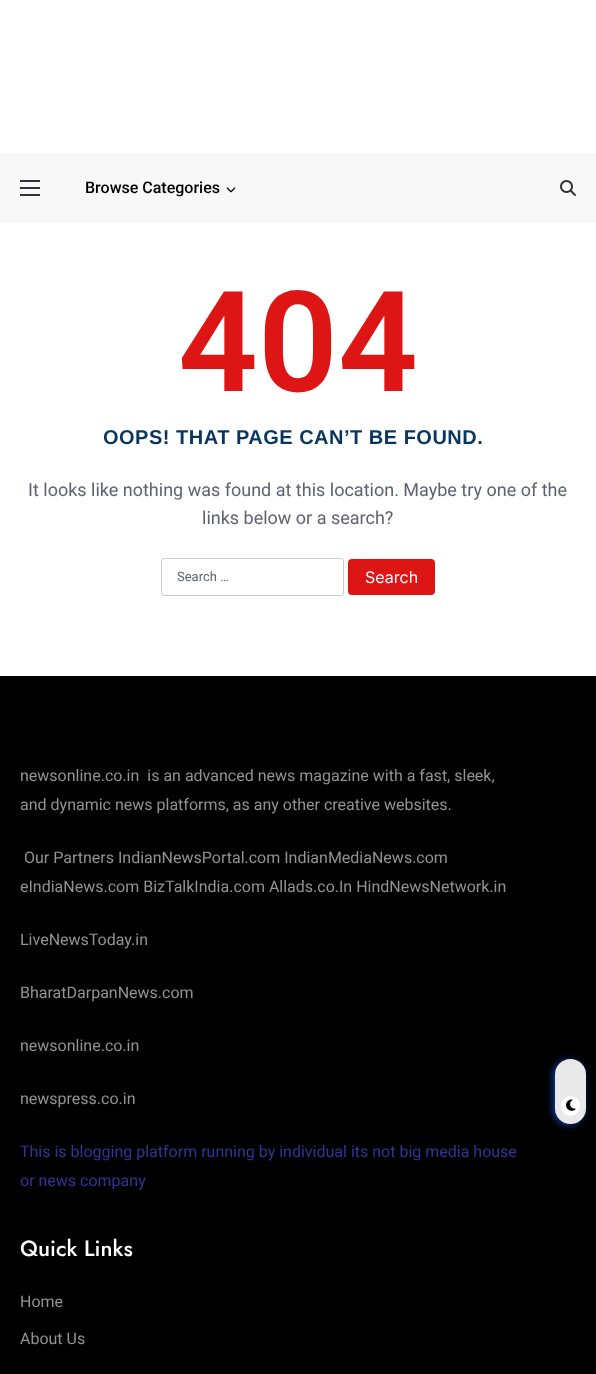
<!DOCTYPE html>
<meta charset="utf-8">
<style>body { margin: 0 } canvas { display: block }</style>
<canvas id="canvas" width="596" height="1374"></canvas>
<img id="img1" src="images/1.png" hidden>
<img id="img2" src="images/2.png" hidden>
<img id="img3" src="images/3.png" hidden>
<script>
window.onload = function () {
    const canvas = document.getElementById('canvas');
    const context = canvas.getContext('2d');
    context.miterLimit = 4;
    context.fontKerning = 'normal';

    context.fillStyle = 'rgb(255, 255, 255)';
    context.fillRect(0, 0, 596, 1374);
    context.fillStyle = 'rgb(248, 248, 248)';
    context.fillRect(0, 153, 596, 70);
    context.fillStyle = 'rgb(51, 50, 55)';
    context.fillRect(20, 180, 20, 2);
    context.fillRect(20, 187, 20, 2);
    context.fillRect(20, 194, 20, 2);
    context.drawImage(document.getElementById('img1'), 226, 187, 10, 6);
    context.drawImage(document.getElementById('img2'), 560, 180, 16, 16);
    context.fillStyle = 'rgb(0, 0, 0)';
    context.fillRect(0, 676, 596, 698);
    context.fillStyle = 'rgba(24, 95, 255, 0.63)';
    context.filter = 'blur(3.5px)';
    context.beginPath();
    context.roundRect(553, 1060, 31, 65, 15.5);
    context.fill();
    context.filter = 'none';
    context.fillStyle = 'rgb(233, 233, 233)';
    context.beginPath();
    context.roundRect(555, 1059, 31, 65, 15.5);
    context.fill();
    context.fillStyle = 'rgb(255, 255, 255)';
    context.beginPath();
    context.roundRect(561, 1096, 19, 20, 9.5);
    context.fill();
    context.drawImage(document.getElementById('img3'), 566, 1099, 10, 12);
    context.beginPath();
    context.roundRect(161.5, 558.5, 182, 37, 2.5);
    context.strokeStyle = 'rgb(204, 204, 204)';
    context.stroke();
    context.fillStyle = 'rgb(221, 21, 21)';
    context.beginPath();
    context.roundRect(348, 559, 87, 36, 4);
    context.fill();
    context.font = '500 16px Roboto';
    context.fillStyle = 'rgb(0, 0, 0)';
    context.fillText('Browse Categories', 85, 193);
    context.font = '600 140px Roboto';
    context.fillStyle = 'rgb(221, 21, 21)';
    context.fillText('404', 178, 391);
    context.letterSpacing = '0.5px';
    context.font = 'bold 20px Liberation Sans';
    context.fillStyle = 'rgb(9, 54, 94)';
    context.fillText('OOPS! THAT PAGE CAN’T BE FOUND.', 103, 444);
    context.letterSpacing = '0px';
    context.font = '18px Roboto';
    context.fillStyle = 'rgb(93, 98, 115)';
    context.fillText('It looks like nothing was found at this location. Maybe try one of the', 28, 496);
    context.fillText('links below or a search?', 202, 524);
    context.font = '13px Roboto';
    context.fillText('Search …', 177, 581);
    context.font = '16px Inter';
    context.fillStyle = 'rgb(255, 255, 255)';
    context.fillText('Search', 365, 583);
    context.font = '16px Roboto';
    context.fillStyle = 'rgb(148, 147, 146)';
    context.fillText('newsonline.co.in  is an advanced news magazine with a fast, sleek,', 20, 781);
    context.fillText('and dynamic news platforms, as any other creative websites.', 20, 810);
    context.fillText('Our Partners IndianNewsPortal.com IndianMediaNews.com', 24, 863);
    context.fillText('eIndiaNews.com BizTalkIndia.com Allads.co.In HindNewsNetwork.in', 20, 892);
    context.fillText('LiveNewsToday.in', 20, 945);
    context.fillText('BharatDarpanNews.com', 20, 998);
    context.fillText('newsonline.co.in', 20, 1051);
    context.fillText('newspress.co.in', 20, 1104);
    context.fillStyle = 'rgb(51, 51, 153)';
    context.fillText('This is blogging platform running by individual its not big media house', 20, 1157);
    context.fillText('or news company', 20, 1186);
    context.font = '500 22px Jost';
    context.fillStyle = 'rgb(255, 255, 255)';
    context.fillText('Quick Links', 20, 1256);
    context.font = '16px Roboto';
    context.fillStyle = 'rgb(148, 147, 146)';
    context.fillText('Home', 20, 1307);
    context.fillText('About Us', 20, 1344);
};
</script>
